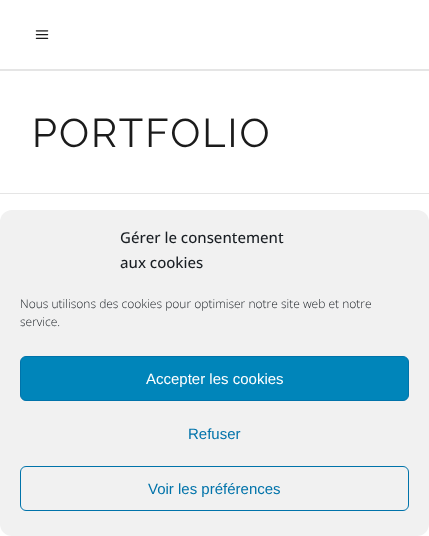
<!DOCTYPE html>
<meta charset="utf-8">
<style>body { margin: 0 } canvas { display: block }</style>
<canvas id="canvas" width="429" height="536"></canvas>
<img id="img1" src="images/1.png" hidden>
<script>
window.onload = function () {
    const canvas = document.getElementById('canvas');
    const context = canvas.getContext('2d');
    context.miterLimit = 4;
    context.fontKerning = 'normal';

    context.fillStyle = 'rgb(255, 255, 255)';
    context.fillRect(0, 0, 429, 536);
    context.drawImage(document.getElementById('img1'), 35, 30, 14, 9);
    context.fillStyle = 'rgb(229, 229, 229)';
    context.fillRect(0, 69, 429, 2);
    context.fillRect(0, 193, 429, 1);
    context.fillStyle = 'rgb(241, 241, 241)';
    context.beginPath();
    context.roundRect(0, 210, 429, 326, 12);
    context.fill();
    context.fillStyle = 'rgb(0, 133, 186)';
    context.beginPath();
    context.roundRect(20.5, 356.5, 388, 44, 5.5);
    context.fill();
    context.strokeStyle = 'rgb(0, 115, 170)';
    context.stroke();
    context.beginPath();
    context.roundRect(20.5, 466.5, 388, 44, 5.5);
    context.stroke();
    context.letterSpacing = '2px';
    context.font = '40px Raleway';
    context.fillStyle = 'rgb(27, 27, 27)';
    context.fillText('PORTFOLIO', 32, 147);
    context.letterSpacing = '0px';
    context.font = '500 15px Open Sans';
    context.fillStyle = 'rgb(25, 30, 35)';
    context.fillText('Gérer le consentement', 120, 243);
    context.fillText('aux cookies', 120, 268);
    context.font = '300 12px Open Sans';
    context.fillText('Nous utilisons des cookies pour optimiser notre site web et notre', 20, 308);
    context.fillText('service.', 20, 326);
    context.font = '15px Liberation Sans';
    context.fillStyle = 'rgb(255, 255, 255)';
    context.fillText('Accepter les cookies', 146, 384);
    context.fillStyle = 'rgb(0, 115, 170)';
    context.fillText('Refuser', 188, 439);
    context.fillText('Voir les préférences', 148, 494);
};
</script>
